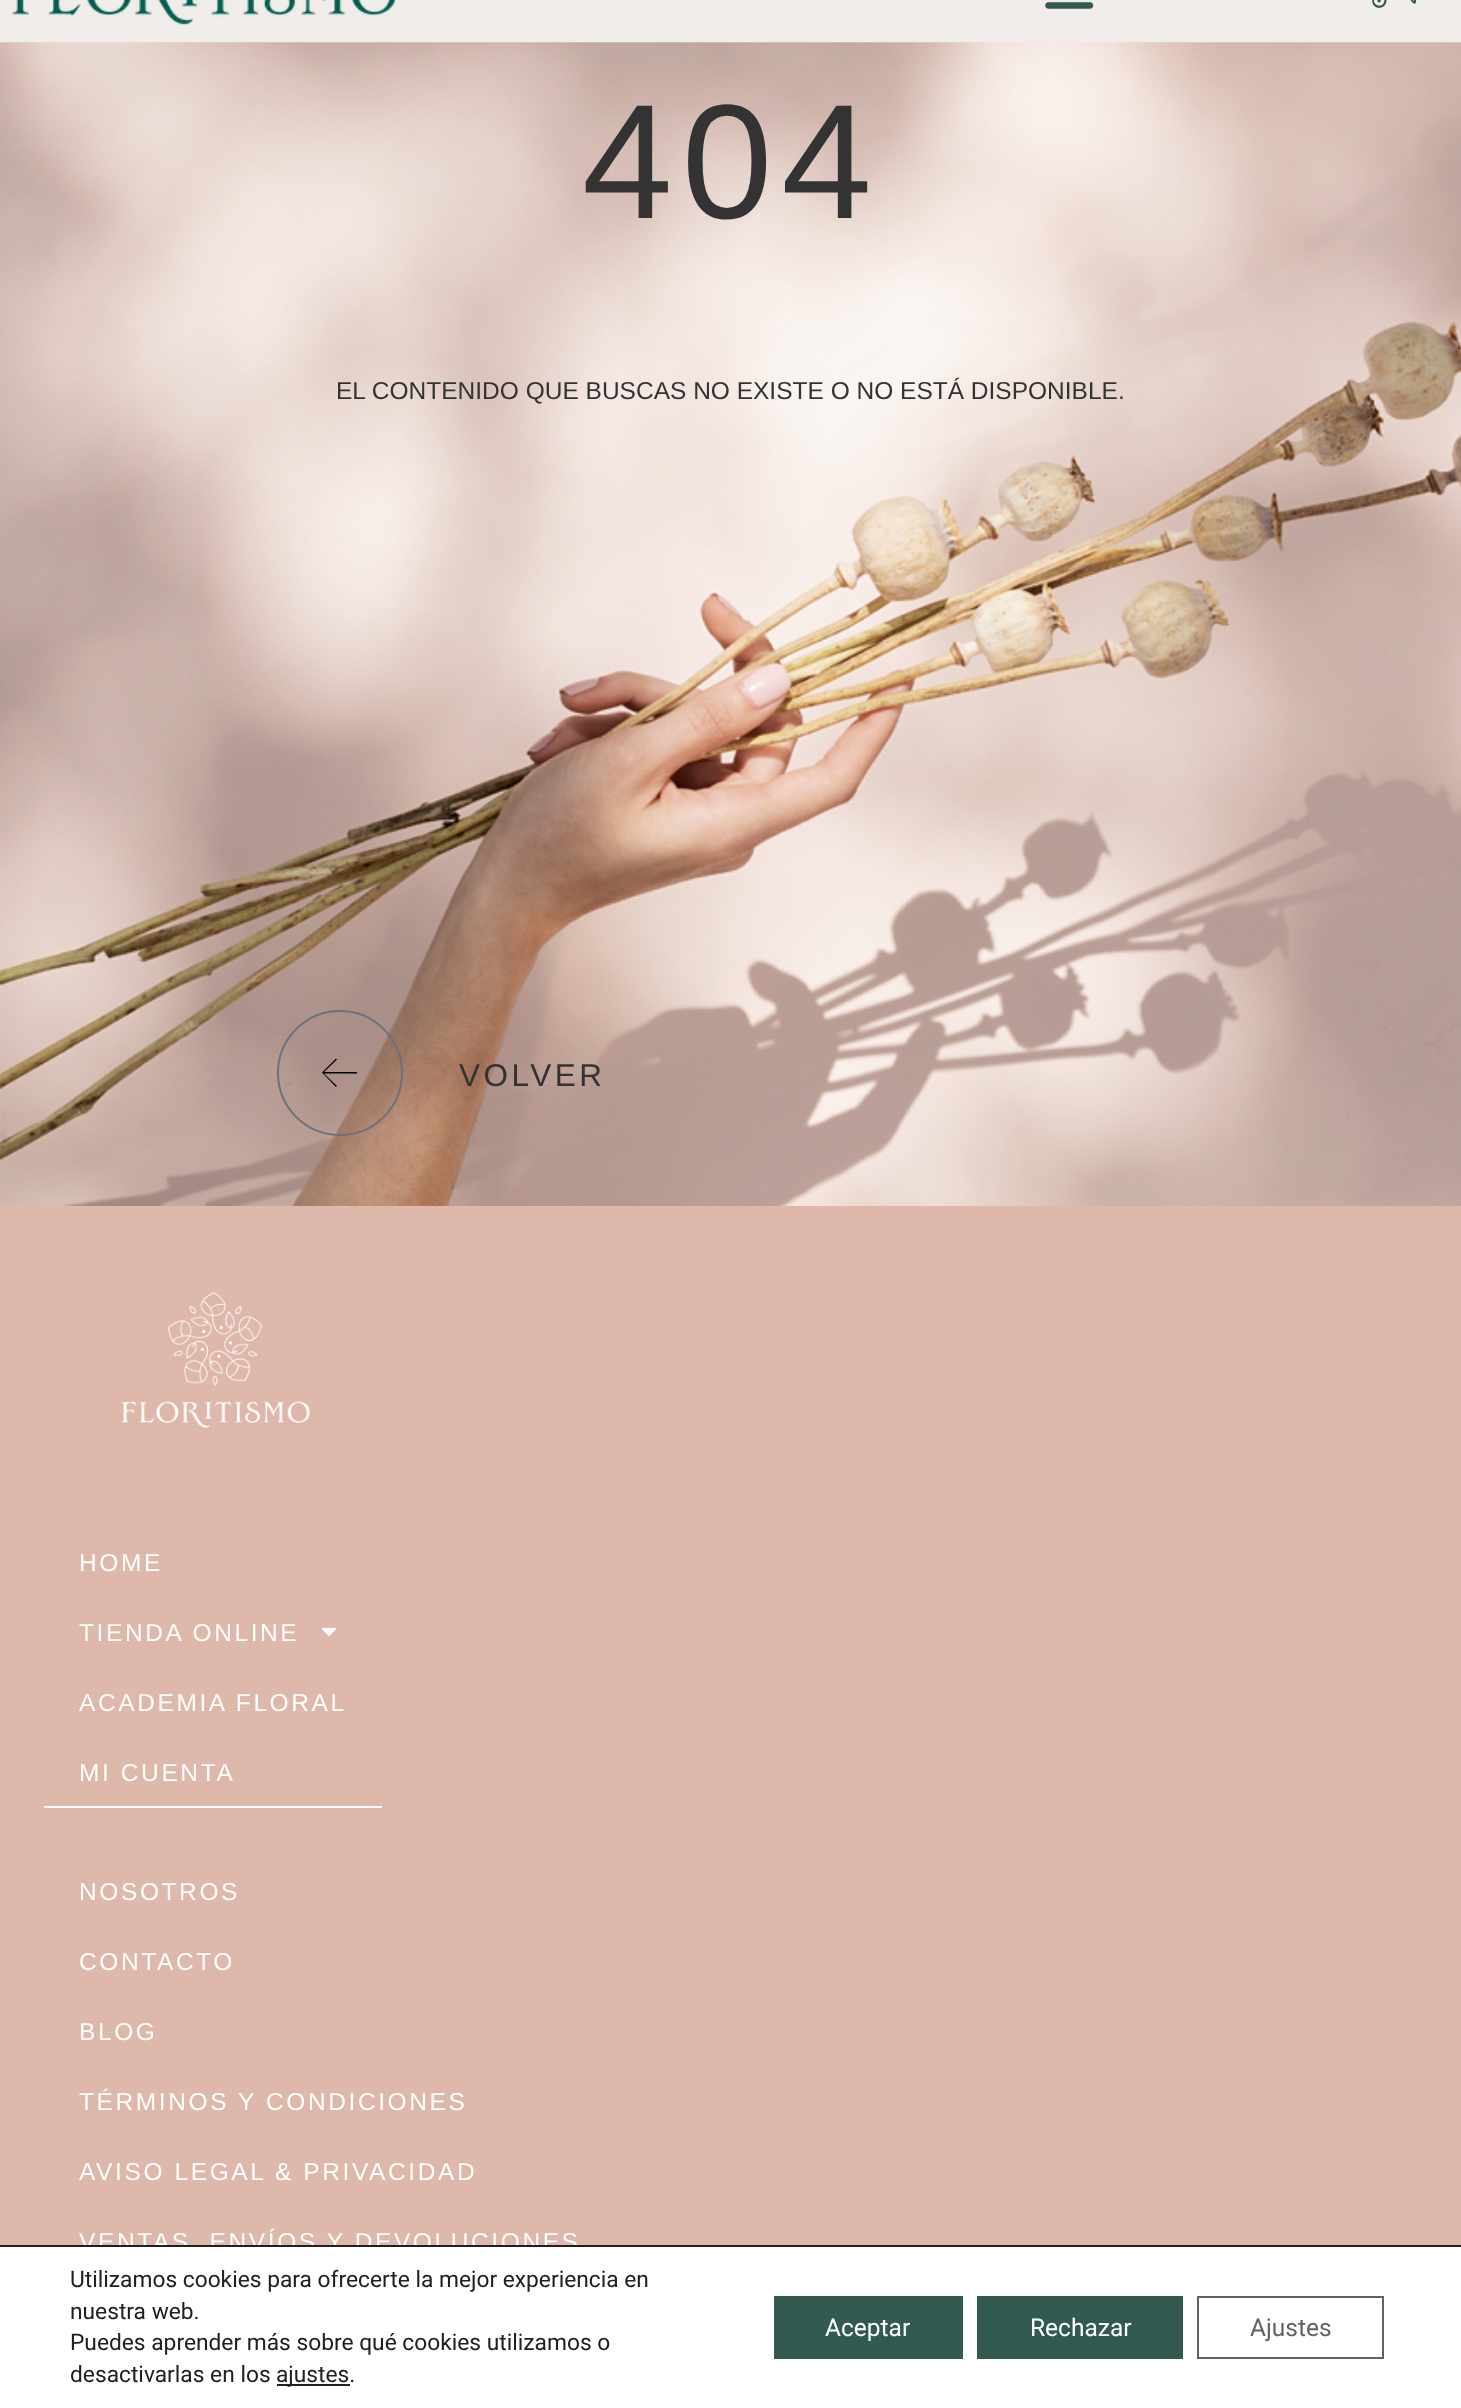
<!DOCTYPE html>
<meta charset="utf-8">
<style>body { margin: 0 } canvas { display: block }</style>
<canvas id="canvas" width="1461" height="2408"></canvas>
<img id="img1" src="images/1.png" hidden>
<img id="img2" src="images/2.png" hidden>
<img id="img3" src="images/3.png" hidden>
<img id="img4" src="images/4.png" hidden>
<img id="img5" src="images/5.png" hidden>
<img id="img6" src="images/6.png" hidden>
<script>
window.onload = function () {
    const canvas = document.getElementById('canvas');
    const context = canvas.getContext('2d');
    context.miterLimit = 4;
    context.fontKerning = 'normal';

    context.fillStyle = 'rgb(241, 237, 234)';
    context.fillRect(0, 0, 1461, 2408);
    context.drawImage(document.getElementById('img1'), 12, 0, 384, 26);
    context.drawImage(document.getElementById('img2'), 1045, 2, 49, 7);
    context.drawImage(document.getElementById('img3'), 1372, 0, 45, 8);
    context.drawImage(document.getElementById('img4'), 0, 42, 1461, 1164);
    context.beginPath();
    context.arc(340, 1073, 62, 0, 2 * Math.PI);
    context.strokeStyle = 'rgb(105, 114, 125)';
    context.lineWidth = 2;
    context.stroke();
    context.fillStyle = 'rgb(0, 0, 0)';
    context.beginPath();
    context.moveTo(357, 1072);
    context.lineTo(324, 1072);
    context.lineTo(337, 1059.5);
    context.lineTo(336, 1058.5);
    context.lineTo(322, 1072.5);
    context.lineTo(336, 1087);
    context.lineTo(337, 1086);
    context.lineTo(324, 1073.5);
    context.lineTo(357, 1073.5);
    context.closePath();
    context.fill('evenodd');
    context.fillStyle = 'rgb(222, 184, 171)';
    context.fillRect(0, 1206, 1461, 1039);
    context.drawImage(document.getElementById('img5'), 121, 1292, 189, 136);
    context.fillStyle = 'rgb(255, 255, 255)';
    context.fillRect(44, 1806, 338, 2);
    context.drawImage(document.getElementById('img6'), 322, 1627, 14, 9);
    context.fillRect(0, 2247, 1461, 161);
    context.fillStyle = 'rgb(32, 32, 32)';
    context.fillRect(277, 2384, 73, 2);
    context.fillStyle = 'rgb(50, 90, 81)';
    context.fillRect(774, 2296, 189, 63);
    context.fillRect(977, 2296, 206, 63);
    context.strokeStyle = 'rgb(99, 99, 99)';
    context.strokeRect(1198, 2297, 185, 61);
    context.letterSpacing = '9px';
    context.font = '163px Liberation Sans';
    context.fillStyle = 'rgb(51, 51, 51)';
    context.fillText('404', 582, 218);
    context.letterSpacing = '0px';
    context.font = '24.5px Liberation Sans';
    context.fillText('EL CONTENIDO QUE BUSCAS NO EXISTE O NO ESTÁ DISPONIBLE.', 336, 399);
    context.letterSpacing = '3.5px';
    context.font = '31.5px Liberation Sans';
    context.fillText('VOLVER', 459, 1086);
    context.letterSpacing = '2.6px';
    context.font = '24.5px Liberation Sans';
    context.fillStyle = 'rgb(255, 255, 255)';
    context.fillText('HOME', 79, 1571);
    context.fillText('TIENDA ONLINE', 79, 1641);
    context.fillText('ACADEMIA FLORAL', 79, 1711);
    context.fillText('MI CUENTA', 79, 1781);
    context.fillText('NOSOTROS', 79, 1900);
    context.fillText('CONTACTO', 79, 1970);
    context.fillText('BLOG', 79, 2040);
    context.fillText('TÉRMINOS Y CONDICIONES', 79, 2110);
    context.fillText('AVISO LEGAL & PRIVACIDAD', 79, 2180);
    context.fillText('VENTAS, ENVÍOS Y DEVOLUCIONES', 79, 2250);
    context.fillStyle = 'rgb(32, 32, 32)';
    context.fillRect(0, 2245, 1461, 2);
    context.letterSpacing = '0px';
    context.font = '22.75px Roboto';
    context.fillText('Utilizamos cookies para ofrecerte la mejor experiencia en', 70, 2287);
    context.fillText('nuestra web.', 70, 2319);
    context.fillText('Puedes aprender más sobre qué cookies utilizamos o', 70, 2350);
    context.fillText('desactivarlas en los', 70, 2382);
    context.fillText('ajustes.', 276, 2382);
    context.font = '24.5px Roboto';
    context.fillStyle = 'rgb(255, 255, 255)';
    context.fillText('Aceptar', 825, 2336);
    context.fillText('Rechazar', 1030, 2336);
    context.fillStyle = 'rgb(99, 99, 99)';
    context.fillText('Ajustes', 1250, 2336);
};
</script>
